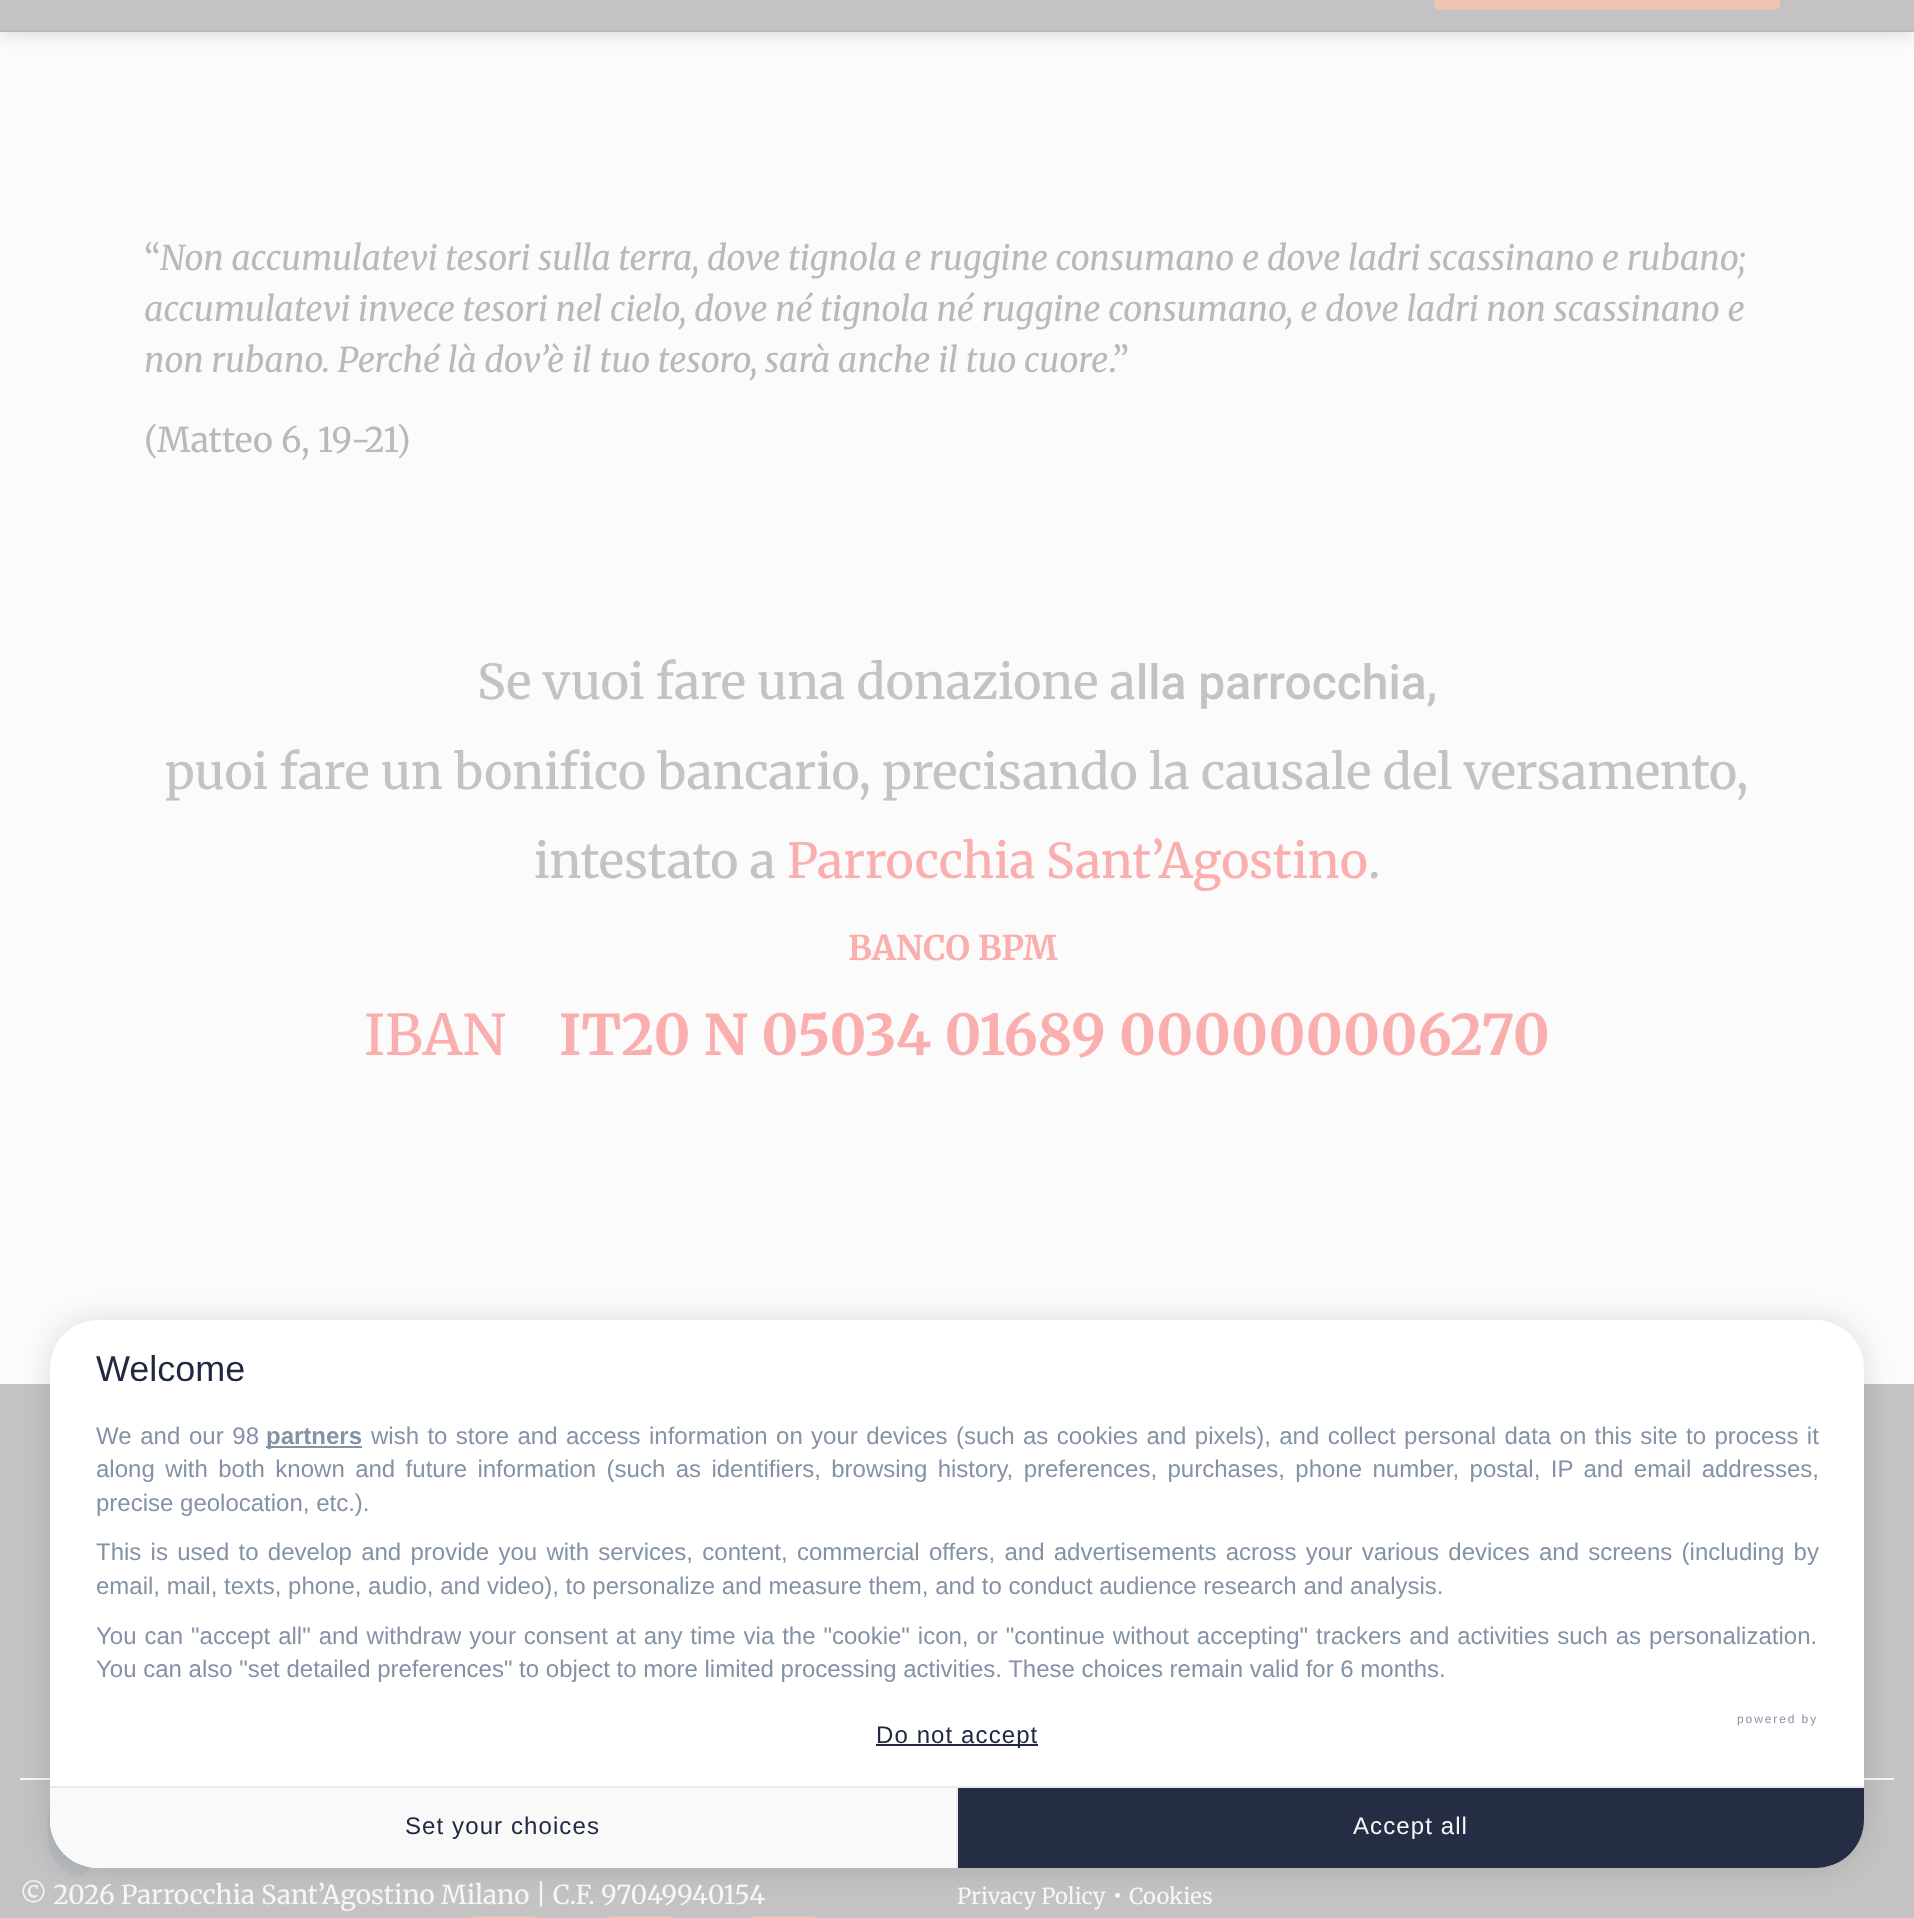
<!DOCTYPE html>
<meta charset="utf-8">
<style>body { margin: 0 } canvas { display: block }</style>
<canvas id="canvas" width="1914" height="1918"></canvas>
<img id="img1" src="images/1.png" hidden>
<script>
window.onload = function () {
    const canvas = document.getElementById('canvas');
    const context = canvas.getContext('2d');
    context.miterLimit = 4;
    context.fontKerning = 'normal';

    context.fillStyle = 'rgb(251, 251, 251)';
    context.fillRect(0, 0, 1914, 1918);
    context.fillStyle = 'rgba(174, 174, 174, 0.5)';
    context.filter = 'blur(10px)';
    context.beginPath();
    context.rect(0, -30, 1914, 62);
    context.fill();
    context.filter = 'none';
    context.fillStyle = 'rgb(196, 194, 194)';
    context.fillRect(0, 0, 1914, 30);
    context.fillStyle = 'rgb(187, 184, 183)';
    context.fillRect(0, 30, 1914, 2);
    context.fillStyle = 'rgb(239, 197, 178)';
    context.beginPath();
    context.roundRect(1434, -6, 346, 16, 6);
    context.fill();
    context.fillStyle = 'rgb(196, 194, 194)';
    context.fillRect(0, 1384, 1914, 534);
    context.drawImage(document.getElementById('img1'), 47, 1796, 48, 82);
    context.fillStyle = 'rgb(247, 246, 246)';
    context.fillRect(20, 1778, 1874, 2);
    context.fillStyle = 'rgba(0, 0, 0, 0.12)';
    context.filter = 'blur(15px)';
    context.beginPath();
    context.roundRect(50, 1320, 1814, 548, 48);
    context.fill();
    context.filter = 'none';
    context.fillStyle = 'rgb(255, 255, 255)';
    context.beginPath();
    context.roundRect(50, 1320, 1814, 548, 48);
    context.fill();
    context.fillStyle = 'rgb(132, 146, 166)';
    context.fillRect(266, 1446, 96, 2);
    context.fillStyle = 'rgb(32, 41, 66)';
    context.fillRect(876, 1744, 162, 2);
    context.fillStyle = 'rgb(249, 249, 249)';
    context.beginPath();
    context.roundRect(50, 1786, 908, 82, [0, 0, 0, 48]);
    context.fill();
    context.fillStyle = 'rgb(234, 234, 234)';
    context.fillRect(50, 1786, 908, 2);
    context.fillRect(956, 1786, 2, 82);
    context.fillStyle = 'rgb(37, 45, 69)';
    context.beginPath();
    context.roundRect(958, 1786, 906, 82, [0, 0, 48, 0]);
    context.fill();
    context.fillStyle = 'rgb(234, 234, 234)';
    context.fillRect(958, 1786, 906, 2);
    context.beginPath();
    context.roundRect(453, 1917, 102, 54, 51);
    context.strokeStyle = 'rgb(239, 197, 178)';
    context.lineWidth = 2;
    context.stroke();
    context.beginPath();
    context.roundRect(591, 1917, 102, 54, 51);
    context.stroke();
    context.beginPath();
    context.roundRect(731, 1917, 102, 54, 51);
    context.stroke();
    context.font = '34px Merriweather';
    context.fillStyle = 'rgb(187, 184, 183)';
    context.fillText('“', 144, 270);
    context.font = 'italic 34px Merriweather';
    context.fillText('Non accumulatevi tesori sulla terra, dove tignola e ruggine consumano e dove ladri scassinano e rubano;', 160, 270);
    context.fillText('accumulatevi invece tesori nel cielo, dove né tignola né ruggine consumano, e dove ladri non scassinano e', 144, 321);
    context.fillText('non rubano. Perché là dov’è il tuo tesoro, sarà anche il tuo cuore', 144, 372);
    context.font = '34px Merriweather';
    context.fillText('.”', 1108, 372);
    context.fillText('(Matteo 6, 19-21)', 144, 452);
    context.font = '500 48px Merriweather';
    context.fillStyle = 'rgb(196, 194, 194)';
    context.fillText('Se vuoi fare una donazione a', 477, 699);
    context.font = '500 48px Roboto';
    context.fillText('lla parrocchia,', 1136, 699);
    context.font = '500 48px Merriweather';
    context.fillText('puoi fare un bonifico bancario, precisando la causale del versamento,', 165, 789);
    context.fillText('intestato a', 534, 878);
    context.wordSpacing = '-1px';
    context.fillStyle = 'rgb(251, 174, 174)';
    context.fillText('Parrocchia Sant’Agostino', 787, 878);
    context.wordSpacing = '0px';
    context.fillStyle = 'rgb(196, 194, 194)';
    context.fillText('.', 1368, 878);
    context.font = 'bold 34px Merriweather';
    context.fillStyle = 'rgb(251, 174, 174)';
    context.fillText('BANCO BPM', 848, 960);
    context.font = '500 56px Merriweather';
    context.fillText('IBAN', 364, 1055);
    context.font = 'bold 56px Merriweather';
    context.fillText('IT20 N 05034 01689 000000006270', 559, 1055);
    context.font = '36px Liberation Sans';
    context.fillStyle = 'rgb(32, 41, 66)';
    context.fillText('Welcome', 96, 1381);
    context.wordSpacing = '2px';
    context.font = '24px Liberation Sans';
    context.fillStyle = 'rgb(132, 146, 166)';
    context.fillText('We and our 98', 96, 1444);
    context.wordSpacing = '0px';
    context.font = 'bold 24px Liberation Sans';
    context.fillText('partners', 266, 1444);
    context.wordSpacing = '1.7px';
    context.font = '24px Liberation Sans';
    context.fillText('wish to store and access information on your devices (such as cookies and pixels), and collect personal data on this site to process it', 371, 1444);
    context.wordSpacing = '3.75px';
    context.fillText('along with both known and future information (such as identifiers, browsing history, preferences, purchases, phone number, postal, IP and email addresses,', 96, 1477);
    context.wordSpacing = '0px';
    context.fillText('precise geolocation, etc.).', 96, 1511);
    context.wordSpacing = '2.6px';
    context.fillText('This is used to develop and provide you with services, content, commercial offers, and advertisements across your various devices and screens (including by', 96, 1560);
    context.wordSpacing = '0px';
    context.fillText('email, mail, texts, phone, audio, and video), to personalize and measure them, and to conduct audience research and analysis.', 96, 1594);
    context.wordSpacing = '1.25px';
    context.fillText('You can "accept all" and withdraw your consent at any time via the "cookie" icon, or "continue without accepting" trackers and activities such as personalization.', 96, 1644);
    context.wordSpacing = '0px';
    context.fillText('You can also "set detailed preferences" to object to more limited processing activities. These choices remain valid for 6 months.', 96, 1677);
    context.letterSpacing = '1.9px';
    context.font = '12px Liberation Sans';
    context.fillText('powered by', 1737, 1723);
    context.letterSpacing = '1.1px';
    context.font = '24px Liberation Sans';
    context.fillStyle = 'rgb(32, 41, 66)';
    context.fillText('Do not accept', 876, 1743);
    context.fillText('Set your choices', 405, 1834);
    context.fillStyle = 'rgb(247, 246, 246)';
    context.fillText('Accept all', 1353, 1834);
    context.letterSpacing = '0px';
    context.font = '26px Merriweather';
    context.fillText('© 2026 Parrocchia Sant’Agostino Milano | C.F. 97049940154', 20, 1904);
    context.font = '22px Merriweather';
    context.fillText('Privacy Policy', 957, 1904);
    context.font = '26px Merriweather';
    context.fillText('•', 1112, 1904);
    context.font = '22px Merriweather';
    context.fillText('Cookies', 1129, 1904);
};
</script>
